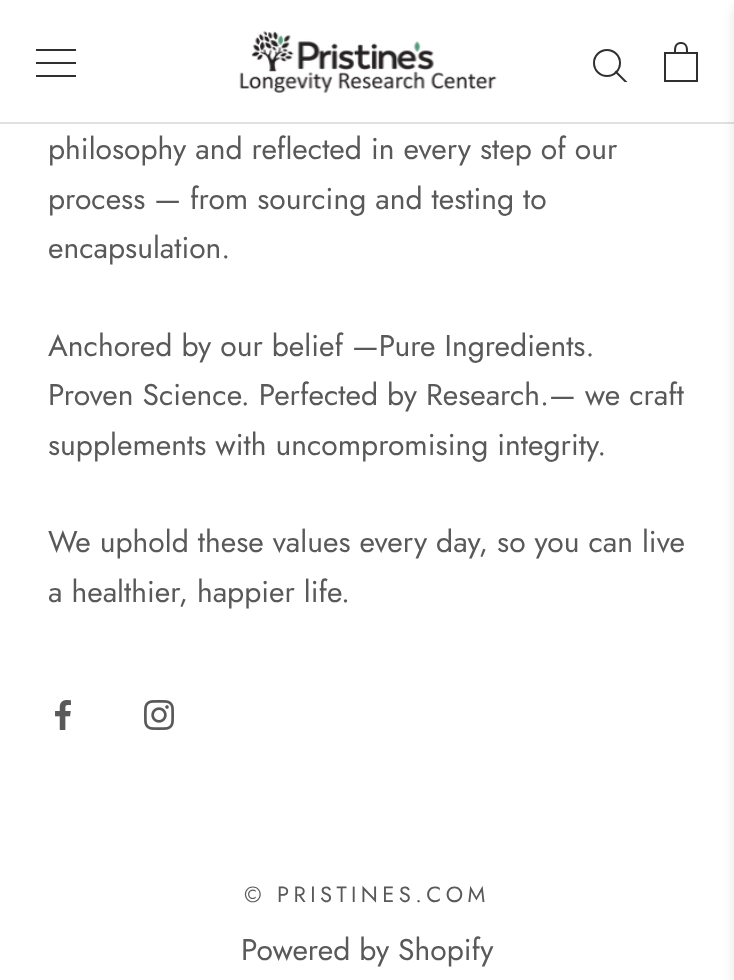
<!DOCTYPE html>
<meta charset="utf-8">
<style>body { margin: 0 } canvas { display: block }</style>
<canvas id="canvas" width="734" height="980"></canvas>
<img id="img1" src="images/1.png" hidden>
<img id="img2" src="images/2.png" hidden>
<img id="img3" src="images/3.png" hidden>
<img id="img4" src="images/4.png" hidden>
<script>
window.onload = function () {
    const canvas = document.getElementById('canvas');
    const context = canvas.getContext('2d');
    context.miterLimit = 4;
    context.fontKerning = 'normal';

    context.fillStyle = 'rgb(255, 255, 255)';
    context.fillRect(0, 0, 734, 980);
    context.fillStyle = 'rgb(224, 224, 224)';
    context.fillRect(0, 122, 734, 2);
    context.fillStyle = 'rgb(48, 48, 48)';
    context.beginPath();
    context.moveTo(36, 77);
    context.lineTo(36, 75);
    context.lineTo(76, 75);
    context.lineTo(76, 77);
    context.closePath();
    context.moveTo(36, 62);
    context.lineTo(76, 62);
    context.lineTo(76, 64);
    context.lineTo(36, 64);
    context.closePath();
    context.moveTo(36, 49);
    context.lineTo(76, 49);
    context.lineTo(76, 51);
    context.lineTo(36, 51);
    context.closePath();
    context.fill();
    context.drawImage(document.getElementById('img1'), 239, 31, 258, 62);
    context.save();
    context.beginPath();
    context.rect(592, 48, 36, 34);
    context.clip();
    context.beginPath();
    context.moveTo(626, 82);
    context.lineTo(616, 72);
    context.strokeStyle = 'rgb(48, 48, 48)';
    context.lineWidth = 2;
    context.lineCap = 'square';
    context.stroke();
    context.restore();
    context.beginPath();
    context.arc(607, 63, 13, 0, 2 * Math.PI);
    context.strokeStyle = 'rgb(48, 48, 48)';
    context.lineWidth = 2;
    context.stroke();
    context.drawImage(document.getElementById('img2'), 664, 42, 34, 40);
    context.drawImage(document.getElementById('img3'), 55, 700, 16, 30);
    context.drawImage(document.getElementById('img4'), 144, 700, 30, 30);
    context.fillStyle = 'rgba(0, 0, 0, 0.1)';
    context.filter = 'blur(6px)';
    context.beginPath();
    context.rect(734, 8, 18, 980);
    context.fill();
    context.filter = 'none';
    context.font = '30px Jost';
    context.fillStyle = 'rgb(89, 89, 89)';
    context.fillText('philosophy and reflected in every step of our', 48, 159);
    context.fillText('process — from sourcing and testing to', 48, 209);
    context.fillText('encapsulation.', 48, 258);
    context.fillText('Anchored by our belief —Pure Ingredients.', 48, 356);
    context.fillText('Proven Science. Perfected by Research.— we craft', 48, 405);
    context.fillText('supplements with uncompromising integrity.', 48, 455);
    context.fillText('We uphold these values every day, so you can live', 48, 552);
    context.fillText('a healthier, happier life.', 48, 602);
    context.letterSpacing = '4.4px';
    context.font = '22px Jost';
    context.fillText('© PRISTINES.COM', 244, 902);
    context.letterSpacing = '0px';
    context.font = '30px Jost';
    context.fillText('Powered by Shopify', 241, 960);
};
</script>
